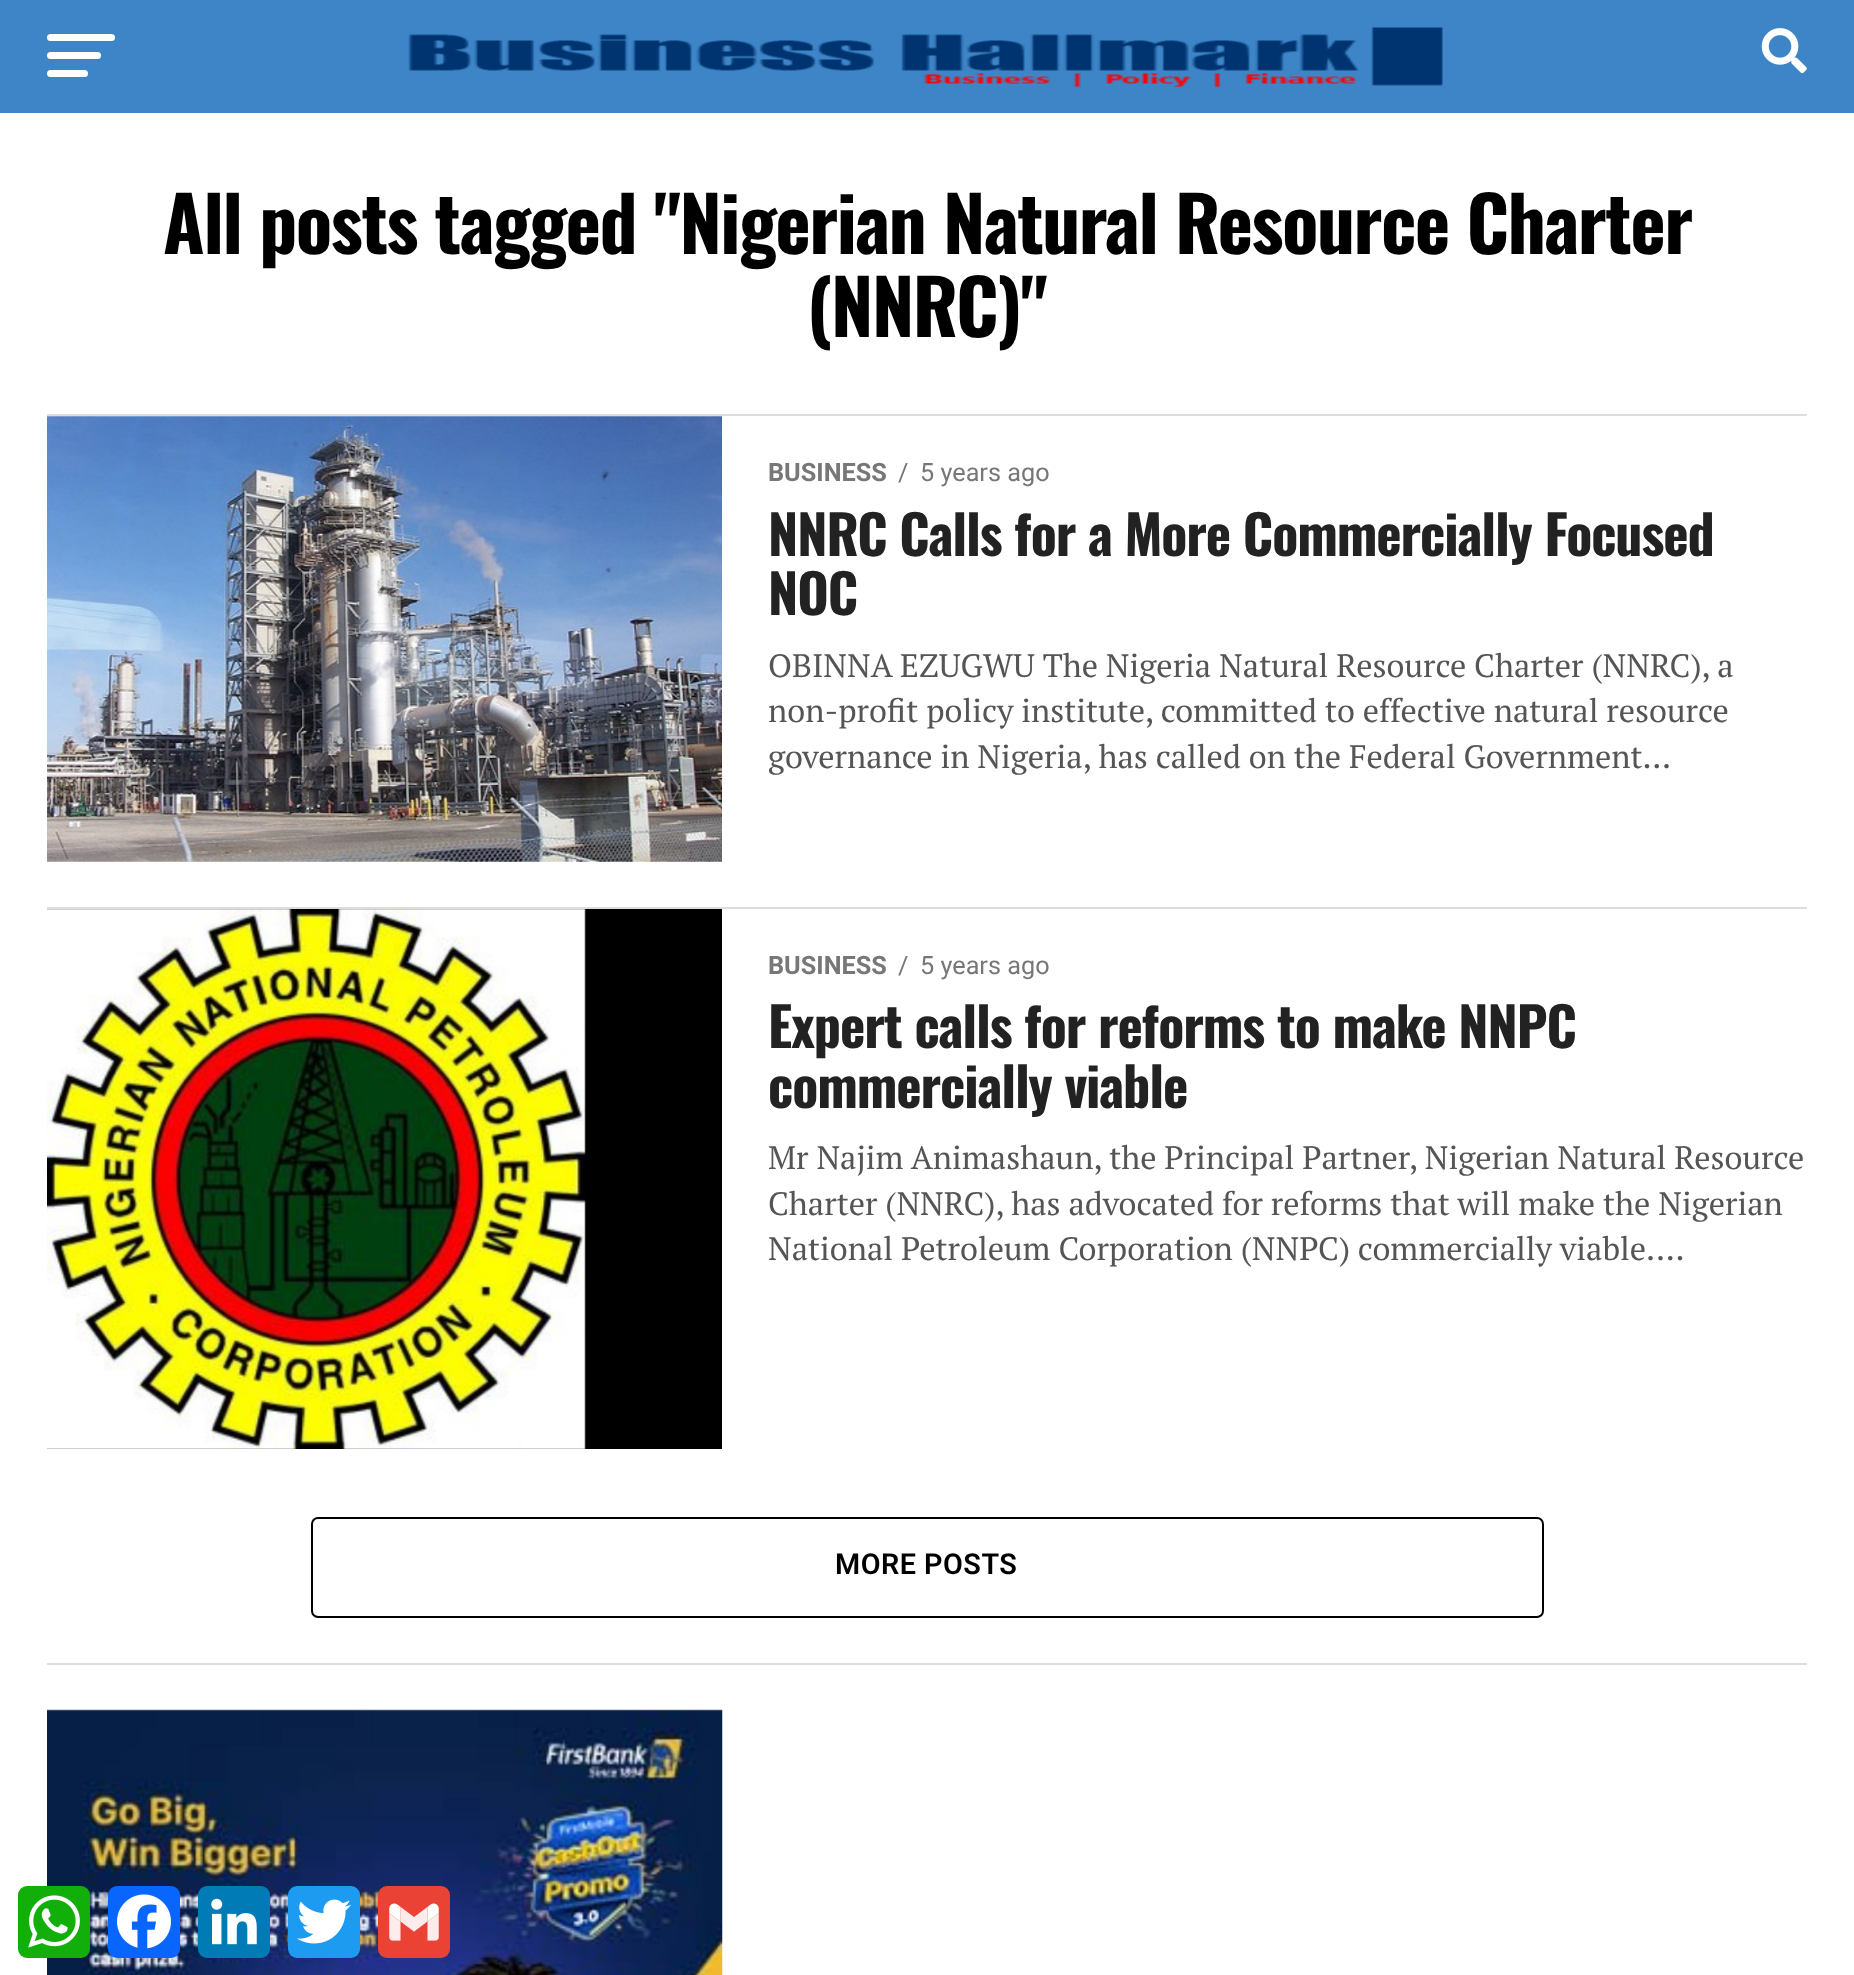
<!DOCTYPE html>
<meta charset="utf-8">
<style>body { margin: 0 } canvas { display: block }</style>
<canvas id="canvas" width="1854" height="1975"></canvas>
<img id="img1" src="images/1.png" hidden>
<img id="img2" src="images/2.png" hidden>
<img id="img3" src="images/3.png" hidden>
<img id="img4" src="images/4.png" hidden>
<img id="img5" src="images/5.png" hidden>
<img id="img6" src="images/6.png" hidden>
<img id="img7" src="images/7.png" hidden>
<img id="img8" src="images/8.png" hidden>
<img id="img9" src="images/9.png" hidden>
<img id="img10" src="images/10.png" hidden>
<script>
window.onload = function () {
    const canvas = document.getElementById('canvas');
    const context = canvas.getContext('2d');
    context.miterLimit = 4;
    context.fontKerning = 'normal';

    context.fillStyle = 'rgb(255, 255, 255)';
    context.fillRect(0, 0, 1854, 1975);
    context.fillStyle = 'rgb(61, 133, 198)';
    context.fillRect(0, 0, 1854, 113);
    context.fillStyle = 'rgb(255, 255, 255)';
    context.beginPath();
    context.roundRect(47, 34, 68, 7, 3.5);
    context.fill();
    context.beginPath();
    context.roundRect(47, 52, 54, 7, 3.5);
    context.fill();
    context.beginPath();
    context.roundRect(47, 70, 41, 7, 3.5);
    context.fill();
    context.drawImage(document.getElementById('img1'), 408, 27, 1035, 61);
    context.drawImage(document.getElementById('img2'), 1761, 28, 46, 46);
    context.fillStyle = 'rgb(221, 221, 221)';
    context.fillRect(47, 414, 1760, 2);
    context.drawImage(document.getElementById('img3'), 47, 416, 675, 446);
    context.fillRect(47, 907, 1760, 2);
    context.fillStyle = 'rgb(0, 0, 0)';
    context.fillRect(47, 909, 675, 540);
    context.drawImage(document.getElementById('img4'), 47, 909, 539, 540);
    context.beginPath();
    context.roundRect(312, 1518, 1231, 99, 6);
    context.strokeStyle = 'rgb(0, 0, 0)';
    context.lineWidth = 2;
    context.stroke();
    context.fillStyle = 'rgb(221, 221, 221)';
    context.fillRect(47, 1663, 1760, 2);
    context.drawImage(document.getElementById('img5'), 47, 1709, 676, 266);
    context.fillStyle = 'rgb(18, 175, 10)';
    context.beginPath();
    context.roundRect(18, 1886, 72, 72, 9);
    context.fill();
    context.drawImage(document.getElementById('img6'), 28, 1895, 52, 53);
    context.fillStyle = 'rgb(8, 102, 255)';
    context.beginPath();
    context.roundRect(108, 1886, 72, 72, 9);
    context.fill();
    context.drawImage(document.getElementById('img7'), 117, 1894, 54, 55);
    context.fillStyle = 'rgb(0, 123, 181)';
    context.beginPath();
    context.roundRect(198, 1886, 72, 72, 9);
    context.fill();
    context.drawImage(document.getElementById('img8'), 211, 1898, 46, 47);
    context.fillStyle = 'rgb(29, 155, 240)';
    context.beginPath();
    context.roundRect(288, 1886, 72, 72, 9);
    context.fill();
    context.drawImage(document.getElementById('img9'), 297, 1899, 54, 45);
    context.fillStyle = 'rgb(234, 67, 53)';
    context.beginPath();
    context.roundRect(378, 1886, 72, 72, 9);
    context.fill();
    context.drawImage(document.getElementById('img10'), 389, 1903, 50, 38);
    context.letterSpacing = '-1.5px';
    context.wordSpacing = '-0.25px';
    context.font = 'bold 75.6px Oswald';
    context.fillStyle = 'rgb(0, 0, 0)';
    context.fillText('All posts tagged "Nigerian Natural Resource Charter', 163, 254);
    context.wordSpacing = '0px';
    context.fillText('(NNRC)"', 807, 337);
    context.letterSpacing = '0px';
    context.font = 'bold 25.25px Roboto';
    context.fillStyle = 'rgb(119, 119, 119)';
    context.fillText('BUSINESS', 768, 481);
    context.font = '25.25px Roboto';
    context.fillText('/', 898, 481);
    context.fillText('5 years ago', 920, 481);
    context.letterSpacing = '-1.1px';
    context.font = 'bold 54px Oswald';
    context.fillStyle = 'rgb(34, 34, 34)';
    context.fillText('NNRC Calls for a More Commercially Focused', 768, 556);
    context.fillText('NOC', 768, 615);
    context.letterSpacing = '0px';
    context.font = '32.4px PT Serif';
    context.fillStyle = 'rgb(85, 85, 85)';
    context.fillText('OBINNA EZUGWU The Nigeria Natural Resource Charter (NNRC), a', 768, 677);
    context.fillText('non-profit policy institute, committed to effective natural resource', 768, 722);
    context.fillText('governance in Nigeria, has called on the Federal Government...', 768, 768);
    context.font = 'bold 25.25px Roboto';
    context.fillStyle = 'rgb(119, 119, 119)';
    context.fillText('BUSINESS', 768, 974);
    context.font = '25.25px Roboto';
    context.fillText('/', 898, 974);
    context.fillText('5 years ago', 920, 974);
    context.letterSpacing = '-1.1px';
    context.font = 'bold 54px Oswald';
    context.fillStyle = 'rgb(34, 34, 34)';
    context.fillText('Expert calls for reforms to make NNPC', 768, 1048);
    context.fillText('commercially viable', 768, 1108);
    context.letterSpacing = '0px';
    context.font = '32.4px PT Serif';
    context.fillStyle = 'rgb(85, 85, 85)';
    context.fillText('Mr Najim Animashaun, the Principal Partner, Nigerian Natural Resource', 768, 1169);
    context.fillText('Charter (NNRC), has advocated for reforms that will make the Nigerian', 768, 1215);
    context.fillText('National Petroleum Corporation (NNPC) commercially viable....', 768, 1260);
    context.letterSpacing = '0.5px';
    context.font = '600 28.75px Roboto';
    context.fillStyle = 'rgb(0, 0, 0)';
    context.fillText('MORE POSTS', 835, 1574);
};
</script>
